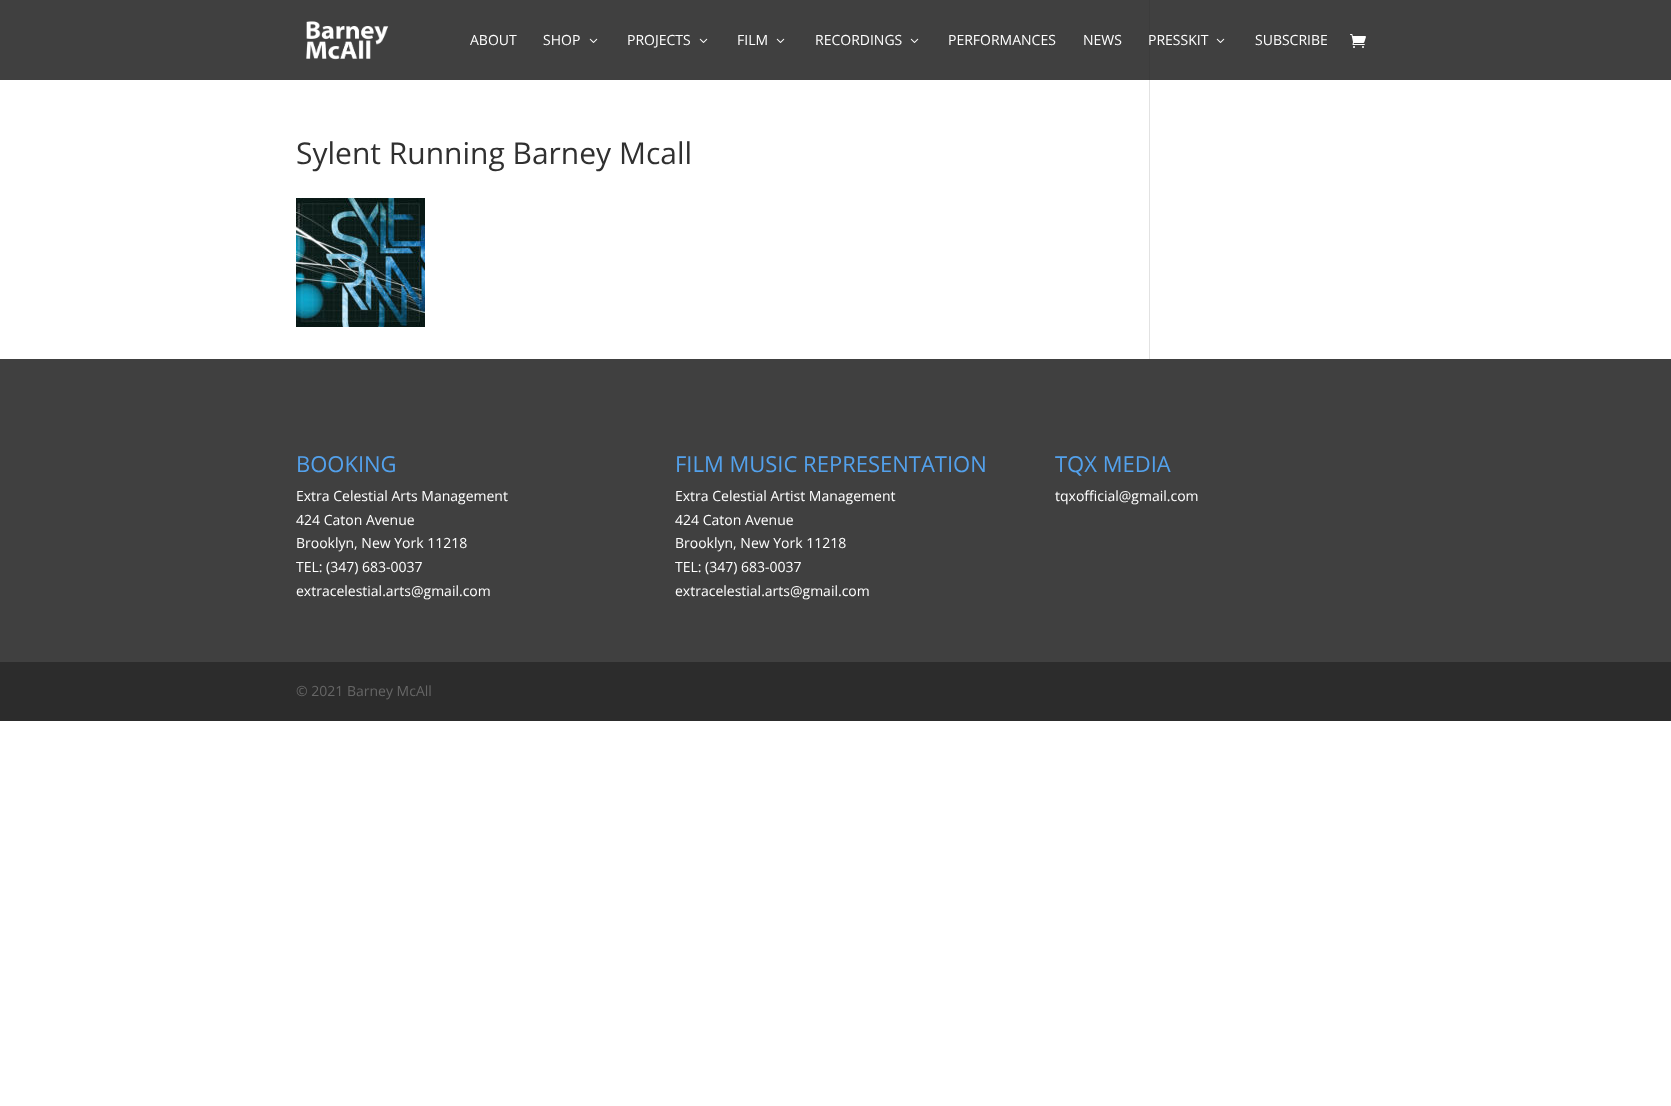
<!DOCTYPE html>
<meta charset="utf-8">
<style>body { margin: 0 } canvas { display: block }</style>
<canvas id="canvas" width="1671" height="1106"></canvas>
<img id="img1" src="images/1.png" hidden>
<img id="img2" src="images/2.png" hidden>
<img id="img3" src="images/3.png" hidden>
<img id="img4" src="images/4.png" hidden>
<script>
window.onload = function () {
    const canvas = document.getElementById('canvas');
    const context = canvas.getContext('2d');
    context.miterLimit = 4;
    context.fontKerning = 'normal';

    context.fillStyle = 'rgb(255, 255, 255)';
    context.fillRect(0, 0, 1671, 1106);
    context.fillStyle = 'rgb(64, 64, 64)';
    context.fillRect(0, 0, 1671, 80);
    context.drawImage(document.getElementById('img1'), 306, 21, 83, 39);
    context.drawImage(document.getElementById('img2'), 589, 38, 9, 5);
    context.drawImage(document.getElementById('img2'), 699, 38, 9, 5);
    context.drawImage(document.getElementById('img2'), 776, 38, 9, 5);
    context.drawImage(document.getElementById('img2'), 910, 38, 9, 5);
    context.drawImage(document.getElementById('img2'), 1216, 38, 9, 5);
    context.drawImage(document.getElementById('img3'), 1350, 34, 16, 14);
    context.drawImage(document.getElementById('img4'), 296, 198, 129, 129);
    context.fillStyle = 'rgb(226, 226, 226)';
    context.fillRect(1149, 80, 1, 279);
    context.fillStyle = 'rgb(60, 60, 60)';
    context.fillRect(1149, 0, 1, 80);
    context.fillStyle = 'rgb(64, 64, 64)';
    context.fillRect(0, 359, 1671, 303);
    context.fillStyle = 'rgb(44, 44, 44)';
    context.fillRect(0, 662, 1671, 59);
    context.font = '14px Open Sans';
    context.fillStyle = 'rgb(255, 255, 255)';
    context.fillText('ABOUT', 470, 45);
    context.fillText('SHOP', 543, 45);
    context.fillText('PROJECTS', 627, 45);
    context.fillText('FILM', 737, 45);
    context.fillText('RECORDINGS', 815, 45);
    context.fillText('PERFORMANCES', 948, 45);
    context.fillText('NEWS', 1083, 45);
    context.fillText('PRESSKIT', 1148, 45);
    context.fillText('SUBSCRIBE', 1255, 45);
    context.font = '30px Open Sans';
    context.fillStyle = 'rgb(48, 48, 48)';
    context.fillText('Sylent Running Barney Mcall', 296, 164);
    context.font = '22px Open Sans';
    context.fillStyle = 'rgb(83, 161, 236)';
    context.fillText('BOOKING', 296, 472);
    context.font = '14px Open Sans';
    context.fillStyle = 'rgb(255, 255, 255)';
    context.fillText('Extra Celestial Arts Management', 296, 501);
    context.fillText('424 Caton Avenue', 296, 525);
    context.fillText('Brooklyn, New York 11218', 296, 548);
    context.fillText('TEL: (347) 683-0037', 296, 572);
    context.fillText('extracelestial.arts@gmail.com', 296, 596);
    context.font = '22px Open Sans';
    context.fillStyle = 'rgb(83, 161, 236)';
    context.fillText('FILM MUSIC REPRESENTATION', 675, 472);
    context.font = '14px Open Sans';
    context.fillStyle = 'rgb(255, 255, 255)';
    context.fillText('Extra Celestial Artist Management', 675, 501);
    context.fillText('424 Caton Avenue', 675, 525);
    context.fillText('Brooklyn, New York 11218', 675, 548);
    context.fillText('TEL: (347) 683-0037', 675, 572);
    context.fillText('extracelestial.arts@gmail.com', 675, 596);
    context.font = '22px Open Sans';
    context.fillStyle = 'rgb(83, 161, 236)';
    context.fillText('TQX MEDIA', 1055, 472);
    context.font = '14px Open Sans';
    context.fillStyle = 'rgb(255, 255, 255)';
    context.fillText('tqxofficial@gmail.com', 1055, 501);
    context.fillStyle = 'rgb(102, 102, 102)';
    context.fillText('© 2021 Barney McAll', 296, 696);
};
</script>
